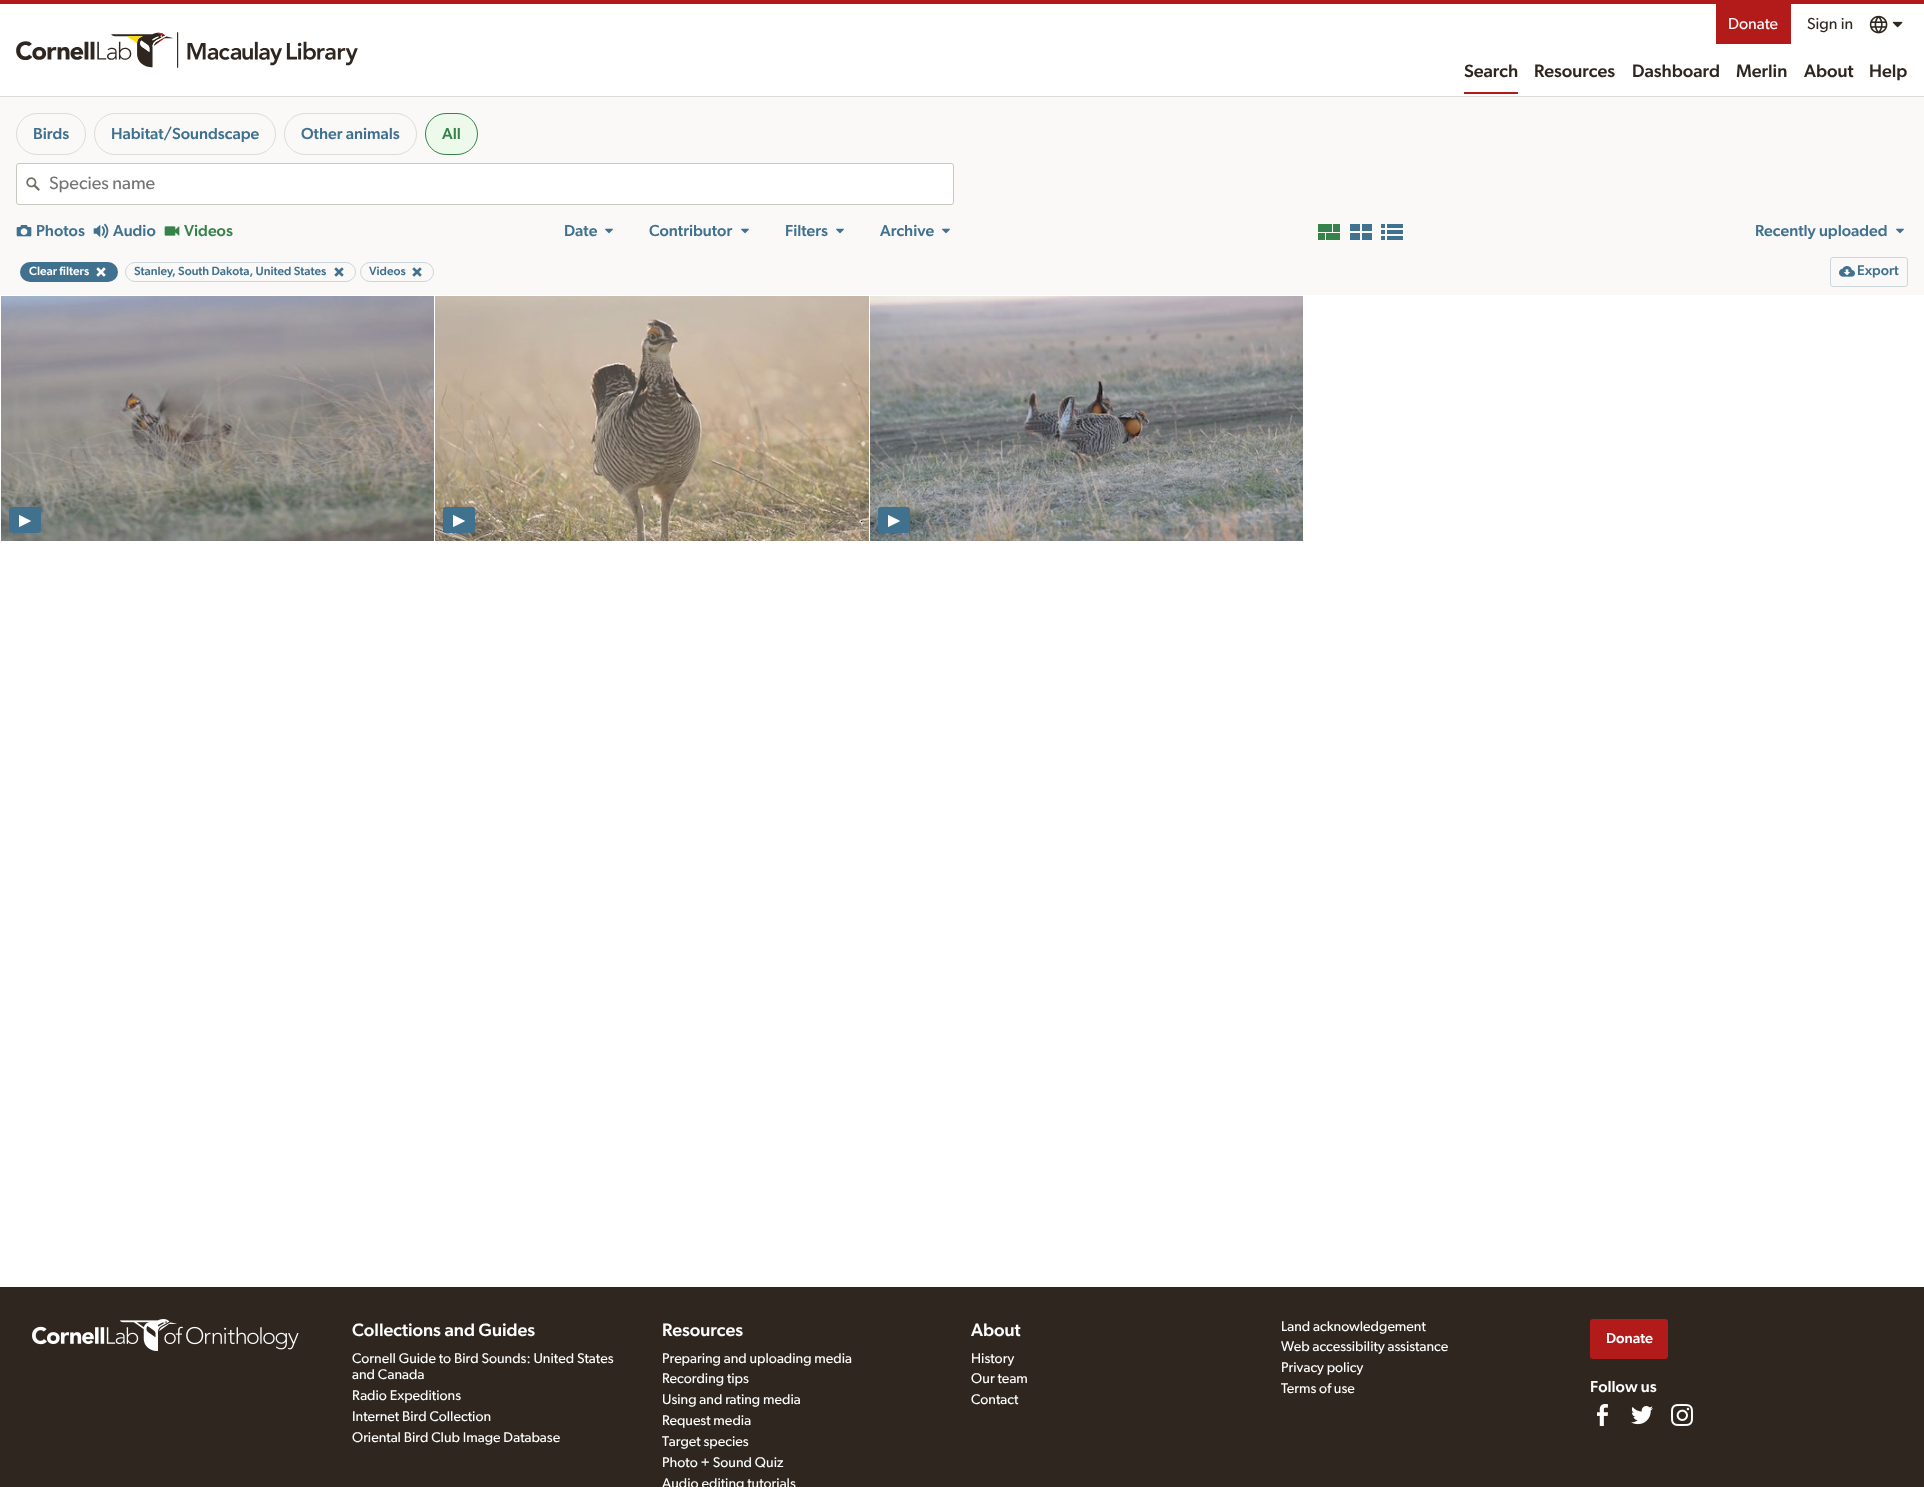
<!DOCTYPE html>
<meta charset="utf-8">
<style>body { margin: 0 } canvas { display: block }</style>
<canvas id="canvas" width="1924" height="1487"></canvas>
<img id="img1" src="images/1.png" hidden>
<img id="img2" src="images/2.png" hidden>
<img id="img3" src="images/3.png" hidden>
<img id="img4" src="images/4.png" hidden>
<img id="img5" src="images/5.png" hidden>
<img id="img6" src="images/6.png" hidden>
<img id="img7" src="images/7.png" hidden>
<img id="img8" src="images/8.png" hidden>
<img id="img9" src="images/9.png" hidden>
<img id="img10" src="images/10.png" hidden>
<img id="img11" src="images/11.png" hidden>
<img id="img12" src="images/12.png" hidden>
<img id="img13" src="images/13.png" hidden>
<img id="img14" src="images/14.png" hidden>
<img id="img15" src="images/15.png" hidden>
<img id="img16" src="images/16.png" hidden>
<img id="img17" src="images/17.png" hidden>
<img id="img18" src="images/18.png" hidden>
<img id="img19" src="images/19.png" hidden>
<img id="img20" src="images/20.png" hidden>
<img id="img21" src="images/21.png" hidden>
<img id="img22" src="images/22.png" hidden>
<script>
window.onload = function () {
    const canvas = document.getElementById('canvas');
    const context = canvas.getContext('2d');
    context.miterLimit = 4;
    context.fontKerning = 'normal';

    context.fillStyle = 'rgb(255, 255, 255)';
    context.fillRect(0, 0, 1924, 1487);
    context.fillStyle = 'rgb(179, 27, 27)';
    context.fillRect(0, 0, 1924, 4);
    context.fillStyle = 'rgb(219, 219, 217)';
    context.fillRect(0, 96, 1924, 1);
    context.drawImage(document.getElementById('img1'), 16, 32, 342, 36);
    context.fillStyle = 'rgb(179, 27, 27)';
    context.fillRect(1716, 4, 75, 40);
    context.drawImage(document.getElementById('img2'), 1869, 15, 19, 19);
    context.drawImage(document.getElementById('img3'), 1892, 21, 11, 7);
    context.fillRect(1464, 92, 54, 2);
    context.fillStyle = 'rgb(250, 249, 247)';
    context.fillRect(0, 97, 1924, 198);
    context.beginPath();
    context.roundRect(16.5, 113.5, 69, 41, 20.5);
    context.strokeStyle = 'rgb(221, 220, 213)';
    context.stroke();
    context.beginPath();
    context.roundRect(94.5, 113.5, 181, 41, 20.5);
    context.stroke();
    context.beginPath();
    context.roundRect(284.5, 113.5, 132, 41, 20.5);
    context.stroke();
    context.fillStyle = 'rgb(236, 249, 235)';
    context.beginPath();
    context.roundRect(425.5, 113.5, 52, 41, 20.5);
    context.fill();
    context.strokeStyle = 'rgb(54, 130, 75)';
    context.stroke();
    context.fillStyle = 'rgb(255, 255, 255)';
    context.beginPath();
    context.roundRect(16.5, 163.5, 937, 41, 2.5);
    context.fill();
    context.strokeStyle = 'rgb(200, 199, 192)';
    context.stroke();
    context.drawImage(document.getElementById('img4'), 26, 177, 14, 14);
    context.drawImage(document.getElementById('img5'), 16, 225, 16, 12);
    context.drawImage(document.getElementById('img6'), 93, 223, 16, 16);
    context.drawImage(document.getElementById('img7'), 164, 226, 16, 10);
    context.drawImage(document.getElementById('img8'), 605, 228, 8, 6);
    context.drawImage(document.getElementById('img8'), 741, 228, 8, 6);
    context.drawImage(document.getElementById('img8'), 836, 228, 8, 6);
    context.drawImage(document.getElementById('img8'), 942, 228, 8, 6);
    context.drawImage(document.getElementById('img9'), 1318, 224, 22, 16);
    context.drawImage(document.getElementById('img10'), 1350, 224, 22, 16);
    context.drawImage(document.getElementById('img11'), 1381, 224, 22, 16);
    context.drawImage(document.getElementById('img8'), 1896, 228, 8, 6);
    context.fillStyle = 'rgb(64, 113, 143)';
    context.beginPath();
    context.roundRect(20, 262, 98, 20, 10);
    context.fill();
    context.drawImage(document.getElementById('img12'), 96, 267, 10, 10);
    context.beginPath();
    context.roundRect(125.5, 262.5, 230, 19, 9.5);
    context.strokeStyle = 'rgb(204, 215, 221)';
    context.stroke();
    context.drawImage(document.getElementById('img13'), 334, 267, 10, 10);
    context.beginPath();
    context.roundRect(360.5, 262.5, 73, 19, 9.5);
    context.stroke();
    context.drawImage(document.getElementById('img13'), 412, 267, 10, 10);
    context.beginPath();
    context.roundRect(1830.5, 257.5, 77, 29, 2.5);
    context.stroke();
    context.drawImage(document.getElementById('img14'), 1839, 266, 16, 11);
    context.drawImage(document.getElementById('img15'), 1, 296, 433, 245);
    context.beginPath();
    context.roundRect(9, 507, 32, 26, 3);
    context.fill();
    context.drawImage(document.getElementById('img16'), 19, 515, 12, 12);
    context.drawImage(document.getElementById('img17'), 435, 296, 434, 245);
    context.beginPath();
    context.roundRect(443, 507, 32, 26, 3);
    context.fill();
    context.drawImage(document.getElementById('img16'), 453, 515, 12, 12);
    context.drawImage(document.getElementById('img18'), 870, 296, 433, 245);
    context.beginPath();
    context.roundRect(878, 507, 32, 26, 3);
    context.fill();
    context.drawImage(document.getElementById('img16'), 888, 515, 12, 12);
    context.fillStyle = 'rgb(46, 38, 31)';
    context.fillRect(0, 1287, 1924, 200);
    context.drawImage(document.getElementById('img19'), 32, 1319, 267, 32);
    context.fillStyle = 'rgb(179, 27, 27)';
    context.beginPath();
    context.roundRect(1590, 1319, 78, 40, 3);
    context.fill();
    context.drawImage(document.getElementById('img20'), 1597, 1404, 11, 22);
    context.drawImage(document.getElementById('img21'), 1631, 1406, 22, 19);
    context.drawImage(document.getElementById('img22'), 1671, 1404, 22, 22);
    context.font = '16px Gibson';
    context.fillStyle = 'rgb(255, 255, 255)';
    context.fillText('Donate', 1728, 29);
    context.fillStyle = 'rgb(46, 38, 31)';
    context.fillText('Sign in', 1807, 29);
    context.font = '500 18px Gibson';
    context.fillText('Search', 1464, 77);
    context.fillText('Resources', 1534, 77);
    context.fillText('Dashboard', 1632, 77);
    context.fillText('Merlin', 1736, 77);
    context.fillText('About', 1804, 77);
    context.fillText('Help', 1869, 77);
    context.font = '500 16px Gibson';
    context.fillStyle = 'rgb(64, 113, 143)';
    context.fillText('Birds', 33, 139);
    context.fillText('Habitat/Soundscape', 111, 139);
    context.fillText('Other animals', 301, 139);
    context.fillStyle = 'rgb(54, 130, 75)';
    context.fillText('All', 442, 139);
    context.font = '18px Gibson';
    context.fillStyle = 'rgb(117, 117, 117)';
    context.fillText('Species name', 49, 189);
    context.font = '500 16px Gibson';
    context.fillStyle = 'rgb(64, 113, 143)';
    context.fillText('Photos', 36, 236);
    context.fillText('Audio', 113, 236);
    context.fillStyle = 'rgb(54, 130, 75)';
    context.fillText('Videos', 184, 236);
    context.fillStyle = 'rgb(64, 113, 143)';
    context.fillText('Date', 564, 236);
    context.fillText('Contributor', 649, 236);
    context.fillText('Filters', 785, 236);
    context.fillText('Archive', 880, 236);
    context.fillText('Recently uploaded', 1755, 236);
    context.font = '500 12px Gibson';
    context.fillStyle = 'rgb(255, 255, 255)';
    context.fillText('Clear filters', 29, 275);
    context.fillStyle = 'rgb(64, 113, 143)';
    context.fillText('Stanley, South Dakota, United States', 134, 275);
    context.fillText('Videos', 369, 275);
    context.font = '500 14.1px Gibson';
    context.fillText('Export', 1857, 275);
    context.font = '500 18px Gibson';
    context.fillStyle = 'rgb(255, 255, 255)';
    context.fillText('Collections and Guides', 352, 1336);
    context.font = '14.1px Gibson';
    context.fillText('Cornell Guide to Bird Sounds: United States', 352, 1363);
    context.fillText('and Canada', 352, 1379);
    context.fillText('Radio Expeditions', 352, 1400);
    context.fillText('Internet Bird Collection', 352, 1421);
    context.fillText('Oriental Bird Club Image Database', 352, 1442);
    context.font = '500 18px Gibson';
    context.fillText('Resources', 662, 1336);
    context.font = '14.1px Gibson';
    context.fillText('Preparing and uploading media', 662, 1363);
    context.fillText('Recording tips', 662, 1383);
    context.fillText('Using and rating media', 662, 1404);
    context.fillText('Request media', 662, 1425);
    context.fillText('Target species', 662, 1446);
    context.fillText('Photo + Sound Quiz', 662, 1467);
    context.fillText('Audio editing tutorials', 662, 1488);
    context.font = '500 18px Gibson';
    context.fillText('About', 971, 1336);
    context.font = '14.1px Gibson';
    context.fillText('History', 971, 1363);
    context.fillText('Our team', 971, 1383);
    context.fillText('Contact', 971, 1404);
    context.fillText('Land acknowledgement', 1281, 1331);
    context.fillText('Web accessibility assistance', 1281, 1351);
    context.fillText('Privacy policy', 1281, 1372);
    context.fillText('Terms of use', 1281, 1393);
    context.font = '500 14.5px Gibson';
    context.fillText('Donate', 1606, 1343);
    context.font = '500 16px Gibson';
    context.fillText('Follow us', 1590, 1392);
};
</script>
